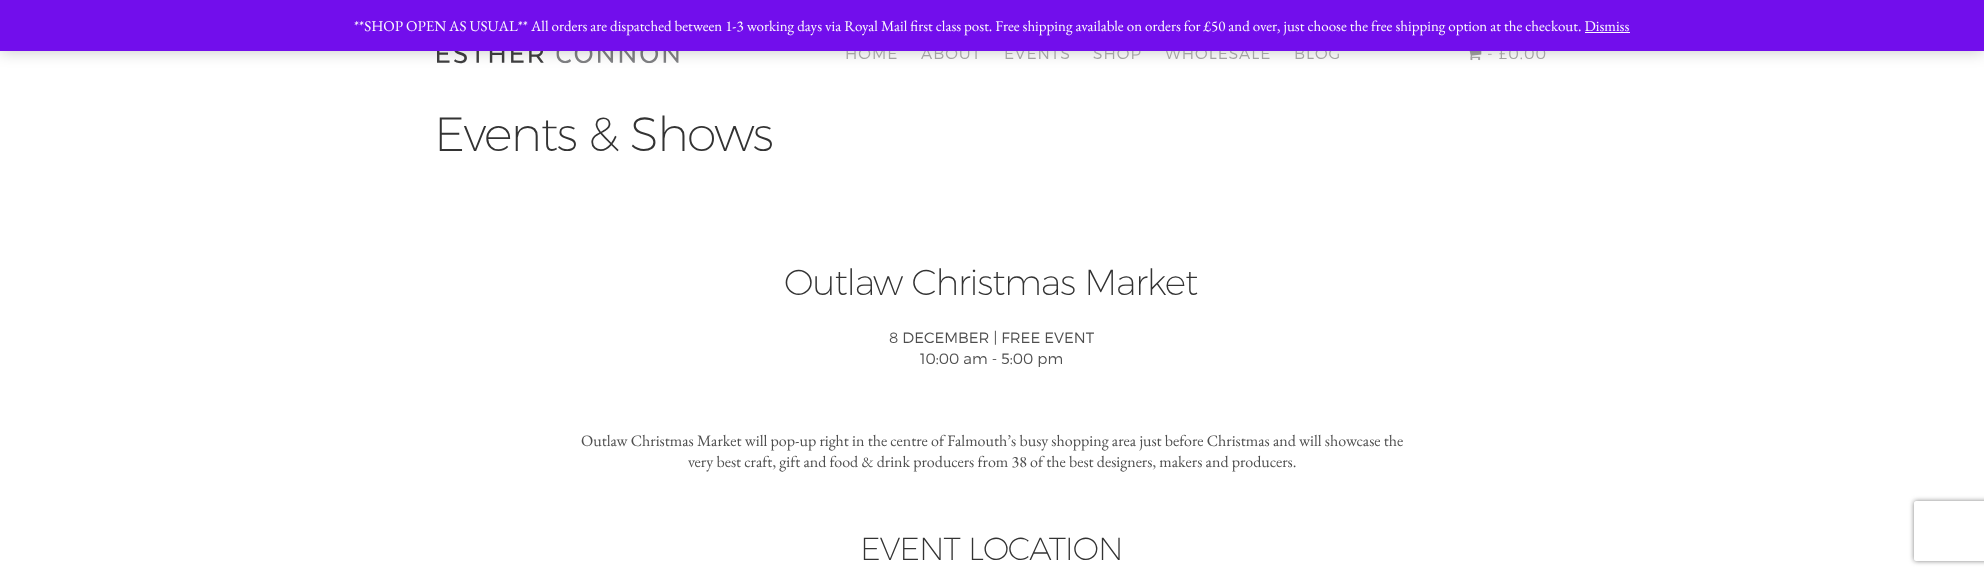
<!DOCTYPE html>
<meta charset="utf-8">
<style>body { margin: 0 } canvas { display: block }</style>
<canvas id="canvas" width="1984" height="575"></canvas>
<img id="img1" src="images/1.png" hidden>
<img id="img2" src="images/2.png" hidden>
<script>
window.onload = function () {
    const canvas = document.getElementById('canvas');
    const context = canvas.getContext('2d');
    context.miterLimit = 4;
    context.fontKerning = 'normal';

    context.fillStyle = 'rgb(255, 255, 255)';
    context.fillRect(0, 0, 1984, 575);
    context.drawImage(document.getElementById('img1'), 437, 51, 242, 13);
    context.drawImage(document.getElementById('img2'), 1469, 51, 13, 10);
    context.fillStyle = 'rgba(0, 0, 0, 0.2)';
    context.filter = 'blur(7.5px)';
    context.beginPath();
    context.rect(0, 1, 1984, 51);
    context.fill();
    context.filter = 'none';
    context.save();
    context.beginPath();
    context.moveTo(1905, 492);
    context.lineTo(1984, 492);
    context.lineTo(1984, 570);
    context.lineTo(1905, 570);
    context.closePath();
    context.moveTo(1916, 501);
    context.lineTo(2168, 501);
    context.bezierCurveTo(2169, 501, 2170, 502, 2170, 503);
    context.lineTo(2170, 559);
    context.bezierCurveTo(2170, 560, 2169, 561, 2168, 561);
    context.lineTo(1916, 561);
    context.bezierCurveTo(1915, 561, 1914, 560, 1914, 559);
    context.lineTo(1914, 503);
    context.bezierCurveTo(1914, 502, 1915, 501, 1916, 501);
    context.closePath();
    context.clip('evenodd');
    context.fillStyle = 'rgb(128, 128, 128)';
    context.filter = 'blur(2.5px)';
    context.beginPath();
    context.roundRect(1914, 501, 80, 60, 2);
    context.fill();
    context.filter = 'none';
    context.restore();
    context.letterSpacing = '1px';
    context.font = '300 15.5px Montserrat';
    context.fillStyle = 'rgb(163, 163, 163)';
    context.fillText('HOME', 845, 59);
    context.fillText('ABOUT', 921, 59);
    context.fillText('EVENTS', 1004, 59);
    context.fillText('SHOP', 1093, 59);
    context.fillText('WHOLESALE', 1165, 59);
    context.fillText('BLOG', 1294, 59);
    context.fillText('- £0.00', 1487, 59);
    context.fillStyle = 'rgb(114, 14, 236)';
    context.fillRect(0, 0, 1984, 51);
    context.fillStyle = 'rgb(252, 251, 254)';
    context.fillRect(1585, 32, 45, 1);
    context.letterSpacing = '0px';
    context.font = '15px EB Garamond';
    context.fillText('**SHOP OPEN AS USUAL** All orders are dispatched between 1-3 working days via Royal Mail first class post. Free shipping available on orders for £50 and over, just choose the free shipping option at the checkout. Dismiss', 354, 31);
    context.letterSpacing = '-1.5px';
    context.font = '200 48px Montserrat';
    context.fillStyle = 'rgb(51, 51, 51)';
    context.fillText('Events & Shows', 434, 151);
    context.letterSpacing = '-1.1px';
    context.font = '200 36px Montserrat';
    context.fillText('Outlaw Christmas Market', 784, 295);
    context.letterSpacing = '0px';
    context.font = '300 15px Montserrat';
    context.fillStyle = 'rgb(78, 78, 78)';
    context.fillText('8 DECEMBER | FREE EVENT', 889, 343);
    context.fillText('10:00 am - 5:00 pm', 920, 364);
    context.font = '16px EB Garamond';
    context.fillText('Outlaw Christmas Market will pop-up right in the centre of Falmouth’s busy shopping area just before Christmas and will showcase the', 581, 446);
    context.fillText('very best craft, gift and food & drink producers from 38 of the best designers, makers and producers.', 688, 467);
    context.letterSpacing = '-1px';
    context.font = '200 32px Montserrat';
    context.fillStyle = 'rgb(51, 51, 51)';
    context.fillText('EVENT LOCATION', 860, 560);
};
</script>
